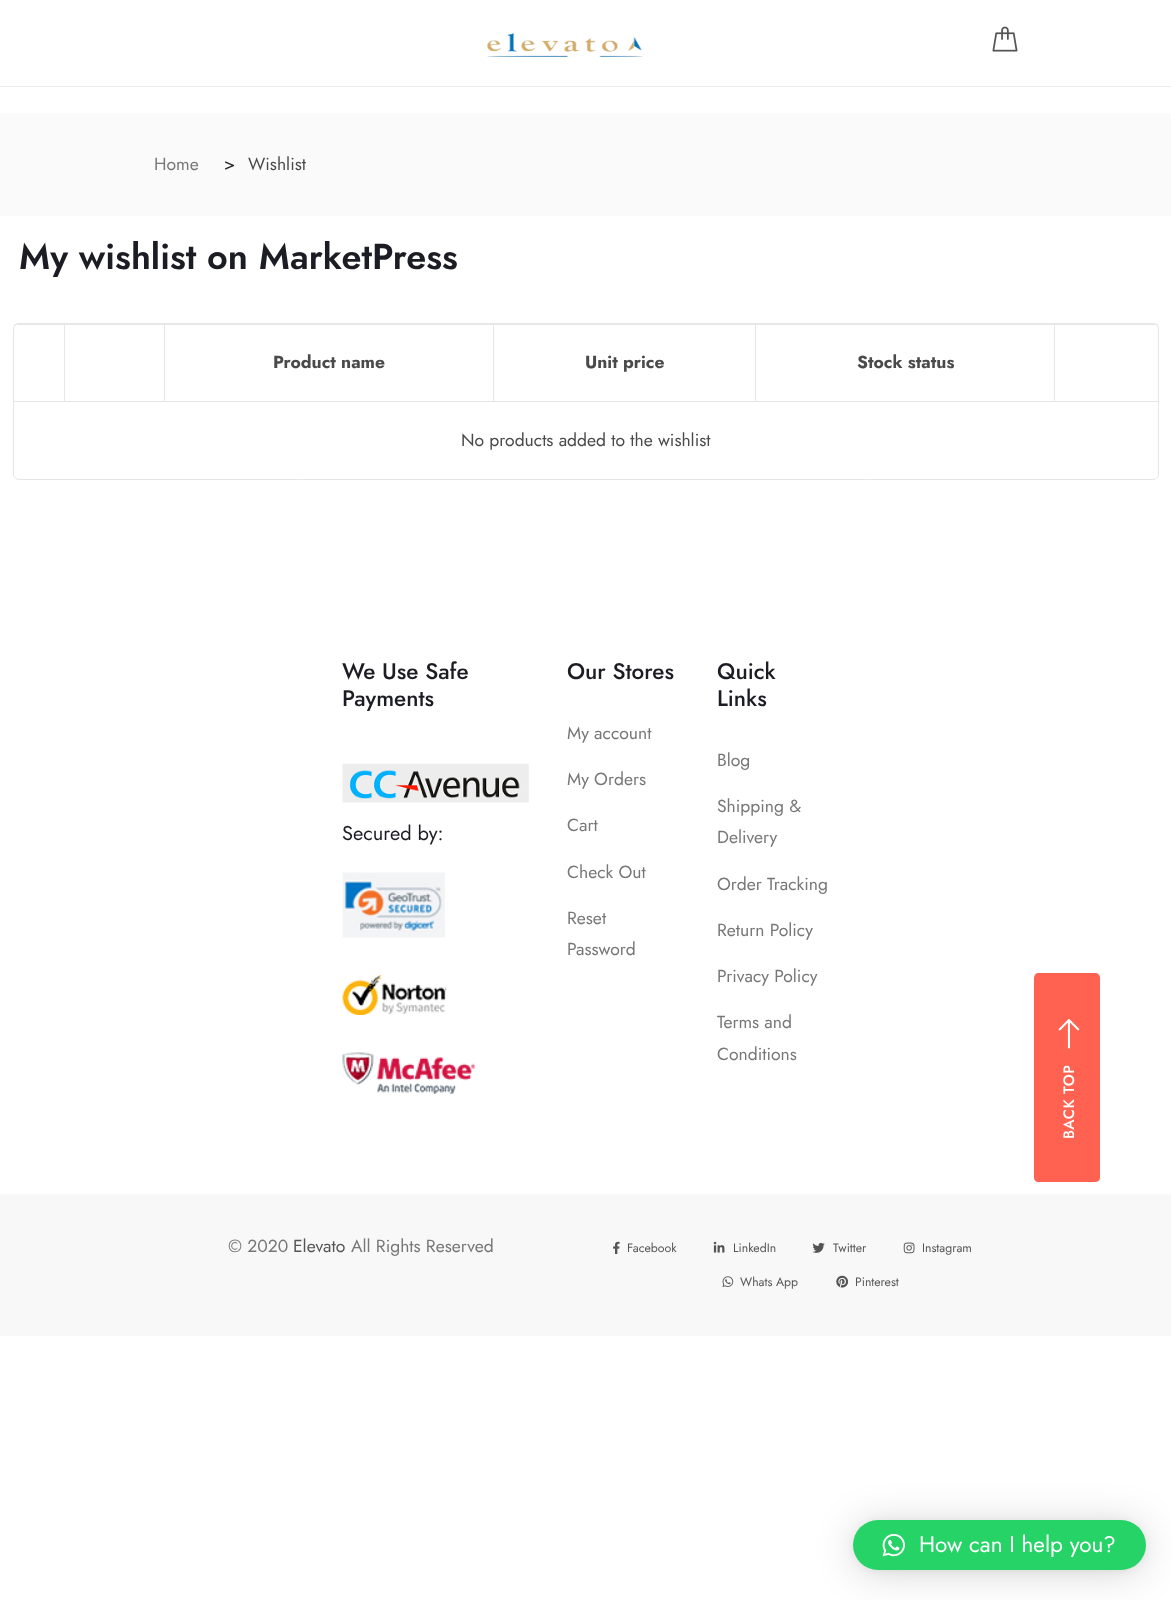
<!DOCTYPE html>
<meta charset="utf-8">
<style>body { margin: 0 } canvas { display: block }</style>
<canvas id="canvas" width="1171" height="1600"></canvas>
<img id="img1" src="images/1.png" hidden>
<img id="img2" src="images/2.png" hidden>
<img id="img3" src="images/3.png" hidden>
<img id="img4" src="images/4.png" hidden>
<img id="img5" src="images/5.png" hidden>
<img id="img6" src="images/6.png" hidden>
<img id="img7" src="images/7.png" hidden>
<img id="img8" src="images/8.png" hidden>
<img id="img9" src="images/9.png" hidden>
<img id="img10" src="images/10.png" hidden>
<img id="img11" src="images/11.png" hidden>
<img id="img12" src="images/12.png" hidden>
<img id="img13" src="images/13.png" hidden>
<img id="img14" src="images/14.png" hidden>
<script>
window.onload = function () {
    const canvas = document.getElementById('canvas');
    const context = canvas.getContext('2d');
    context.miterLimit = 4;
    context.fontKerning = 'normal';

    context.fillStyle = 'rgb(255, 255, 255)';
    context.fillRect(0, 0, 1171, 1600);
    context.fillStyle = 'rgb(237, 237, 237)';
    context.fillRect(0, 86, 1171, 1);
    context.drawImage(document.getElementById('img1'), 487, 33, 156, 24);
    context.drawImage(document.getElementById('img2'), 992, 26, 26, 26);
    context.fillStyle = 'rgb(250, 250, 250)';
    context.fillRect(0, 113, 1171, 103);
    context.beginPath();
    context.roundRect(13.5, 323.5, 1145, 156, 5.5);
    context.strokeStyle = 'rgb(230, 230, 230)';
    context.stroke();
    context.fillStyle = 'rgb(231, 231, 231)';
    context.fillRect(14, 324, 1144, 1);
    context.fillRect(64, 324, 1, 77);
    context.fillRect(164, 324, 1, 77);
    context.fillRect(493, 324, 1, 77);
    context.fillRect(755, 324, 1, 77);
    context.fillRect(1054, 324, 1, 77);
    context.fillStyle = 'rgb(230, 230, 230)';
    context.fillRect(14, 401, 1144, 1);
    context.drawImage(document.getElementById('img3'), 342, 763, 187, 40);
    context.drawImage(document.getElementById('img4'), 342, 872, 103, 66);
    context.drawImage(document.getElementById('img5'), 342, 975, 105, 40);
    context.drawImage(document.getElementById('img6'), 342, 1052, 133, 42);
    context.fillStyle = 'rgb(255, 98, 81)';
    context.beginPath();
    context.moveTo(1034, 1178);
    context.lineTo(1034, 978);
    context.bezierCurveTo(1034, 975, 1036, 973, 1038, 973);
    context.lineTo(1095, 973);
    context.bezierCurveTo(1098, 973, 1100, 975, 1100, 978);
    context.lineTo(1100, 1178);
    context.bezierCurveTo(1100, 1180, 1098, 1182, 1095, 1182);
    context.lineTo(1038, 1182);
    context.bezierCurveTo(1036, 1182, 1034, 1180, 1034, 1178);
    context.closePath();
    context.fill();
    context.drawImage(document.getElementById('img7'), 1058, 1019, 22, 30);
    context.fillStyle = 'rgb(248, 248, 248)';
    context.fillRect(0, 1194, 1171, 142);
    context.drawImage(document.getElementById('img8'), 613, 1241, 7, 13);
    context.drawImage(document.getElementById('img9'), 713, 1241, 12, 12);
    context.drawImage(document.getElementById('img10'), 812, 1243, 13, 10);
    context.drawImage(document.getElementById('img11'), 903, 1242, 12, 12);
    context.drawImage(document.getElementById('img12'), 722, 1276, 12, 11);
    context.drawImage(document.getElementById('img13'), 836, 1275, 13, 13);
    context.fillStyle = 'rgba(0, 0, 0, 0.16)';
    context.filter = 'blur(20px)';
    context.beginPath();
    context.roundRect(853, 1523, 293, 50, 25);
    context.fill();
    context.filter = 'none';
    context.fillStyle = 'rgba(0, 0, 0, 0.06)';
    context.filter = 'blur(4px)';
    context.beginPath();
    context.roundRect(853, 1521, 293, 50, 25);
    context.fill();
    context.filter = 'none';
    context.fillStyle = 'rgb(37, 211, 102)';
    context.beginPath();
    context.roundRect(853, 1520, 293, 50, 25);
    context.fill();
    context.drawImage(document.getElementById('img14'), 882, 1533, 23, 24);
    context.font = '17.5px Jost';
    context.fillStyle = 'rgb(119, 119, 119)';
    context.fillText('Home', 154, 170);
    context.fillStyle = 'rgb(34, 34, 34)';
    context.fillText('>', 224, 170);
    context.fillStyle = 'rgb(74, 74, 74)';
    context.fillText('Wishlist', 248, 170);
    context.font = '600 36px Jost';
    context.fillStyle = 'rgb(28, 28, 36)';
    context.fillText('My wishlist on MarketPress', 19, 269);
    context.font = 'bold 17.5px Jost';
    context.fillStyle = 'rgb(74, 74, 74)';
    context.fillText('Product name', 273, 368);
    context.fillText('Unit price', 585, 368);
    context.fillText('Stock status', 857, 368);
    context.font = '17.5px Jost';
    context.fillText('No products added to the wishlist', 461, 446);
    context.font = '500 22.5px Jost';
    context.fillStyle = 'rgb(28, 28, 36)';
    context.fillText('We Use Safe', 342, 679);
    context.fillText('Payments', 342, 706);
    context.font = '20px Jost';
    context.fillText('Secured by:', 342, 840);
    context.font = '500 22.5px Jost';
    context.fillText('Our Stores', 567, 679);
    context.font = '17.5px Jost';
    context.fillStyle = 'rgb(119, 119, 119)';
    context.fillText('My account', 567, 739);
    context.fillText('My Orders', 567, 785);
    context.fillText('Cart', 567, 831);
    context.fillText('Check Out', 567, 878);
    context.fillText('Reset', 567, 924);
    context.fillText('Password', 567, 955);
    context.font = '500 22.5px Jost';
    context.fillStyle = 'rgb(28, 28, 36)';
    context.fillText('Quick', 717, 679);
    context.fillText('Links', 717, 706);
    context.font = '17.5px Jost';
    context.fillStyle = 'rgb(119, 119, 119)';
    context.fillText('Blog', 717, 766);
    context.fillText('Shipping &', 717, 812);
    context.fillText('Delivery', 717, 843);
    context.fillText('Order Tracking', 717, 890);
    context.fillText('Return Policy', 717, 936);
    context.fillText('Privacy Policy', 717, 982);
    context.fillText('Terms and', 717, 1028);
    context.fillText('Conditions', 717, 1060);
    context.letterSpacing = '0.5px';
    context.font = '500 15px Jost';
    context.fillStyle = 'rgb(255, 255, 255)';
    context.save();
    context.translate(1074, 1139);
    context.rotate(-90 * Math.PI / 180);
    context.fillText('BACK TOP', 0, 0);
    context.restore();
    context.letterSpacing = '0px';
    context.font = '17.5px Jost';
    context.fillStyle = 'rgb(119, 119, 119)';
    context.fillText('© 2020', 228, 1252);
    context.fillStyle = 'rgb(85, 85, 85)';
    context.fillText('Elevato', 293, 1252);
    context.fillStyle = 'rgb(119, 119, 119)';
    context.fillText('All Rights Reserved', 351, 1252);
    context.font = '12.25px Jost';
    context.fillStyle = 'rgb(85, 85, 85)';
    context.fillText('Facebook', 627, 1252);
    context.fillText('LinkedIn', 733, 1252);
    context.fillText('Twitter', 833, 1252);
    context.fillText('Instagram', 922, 1252);
    context.fillText('Whats App', 740, 1286);
    context.fillText('Pinterest', 855, 1286);
    context.font = '22.5px Jost';
    context.fillStyle = 'rgb(255, 255, 255)';
    context.fillText('How can I help you?', 919, 1552);
};
</script>
